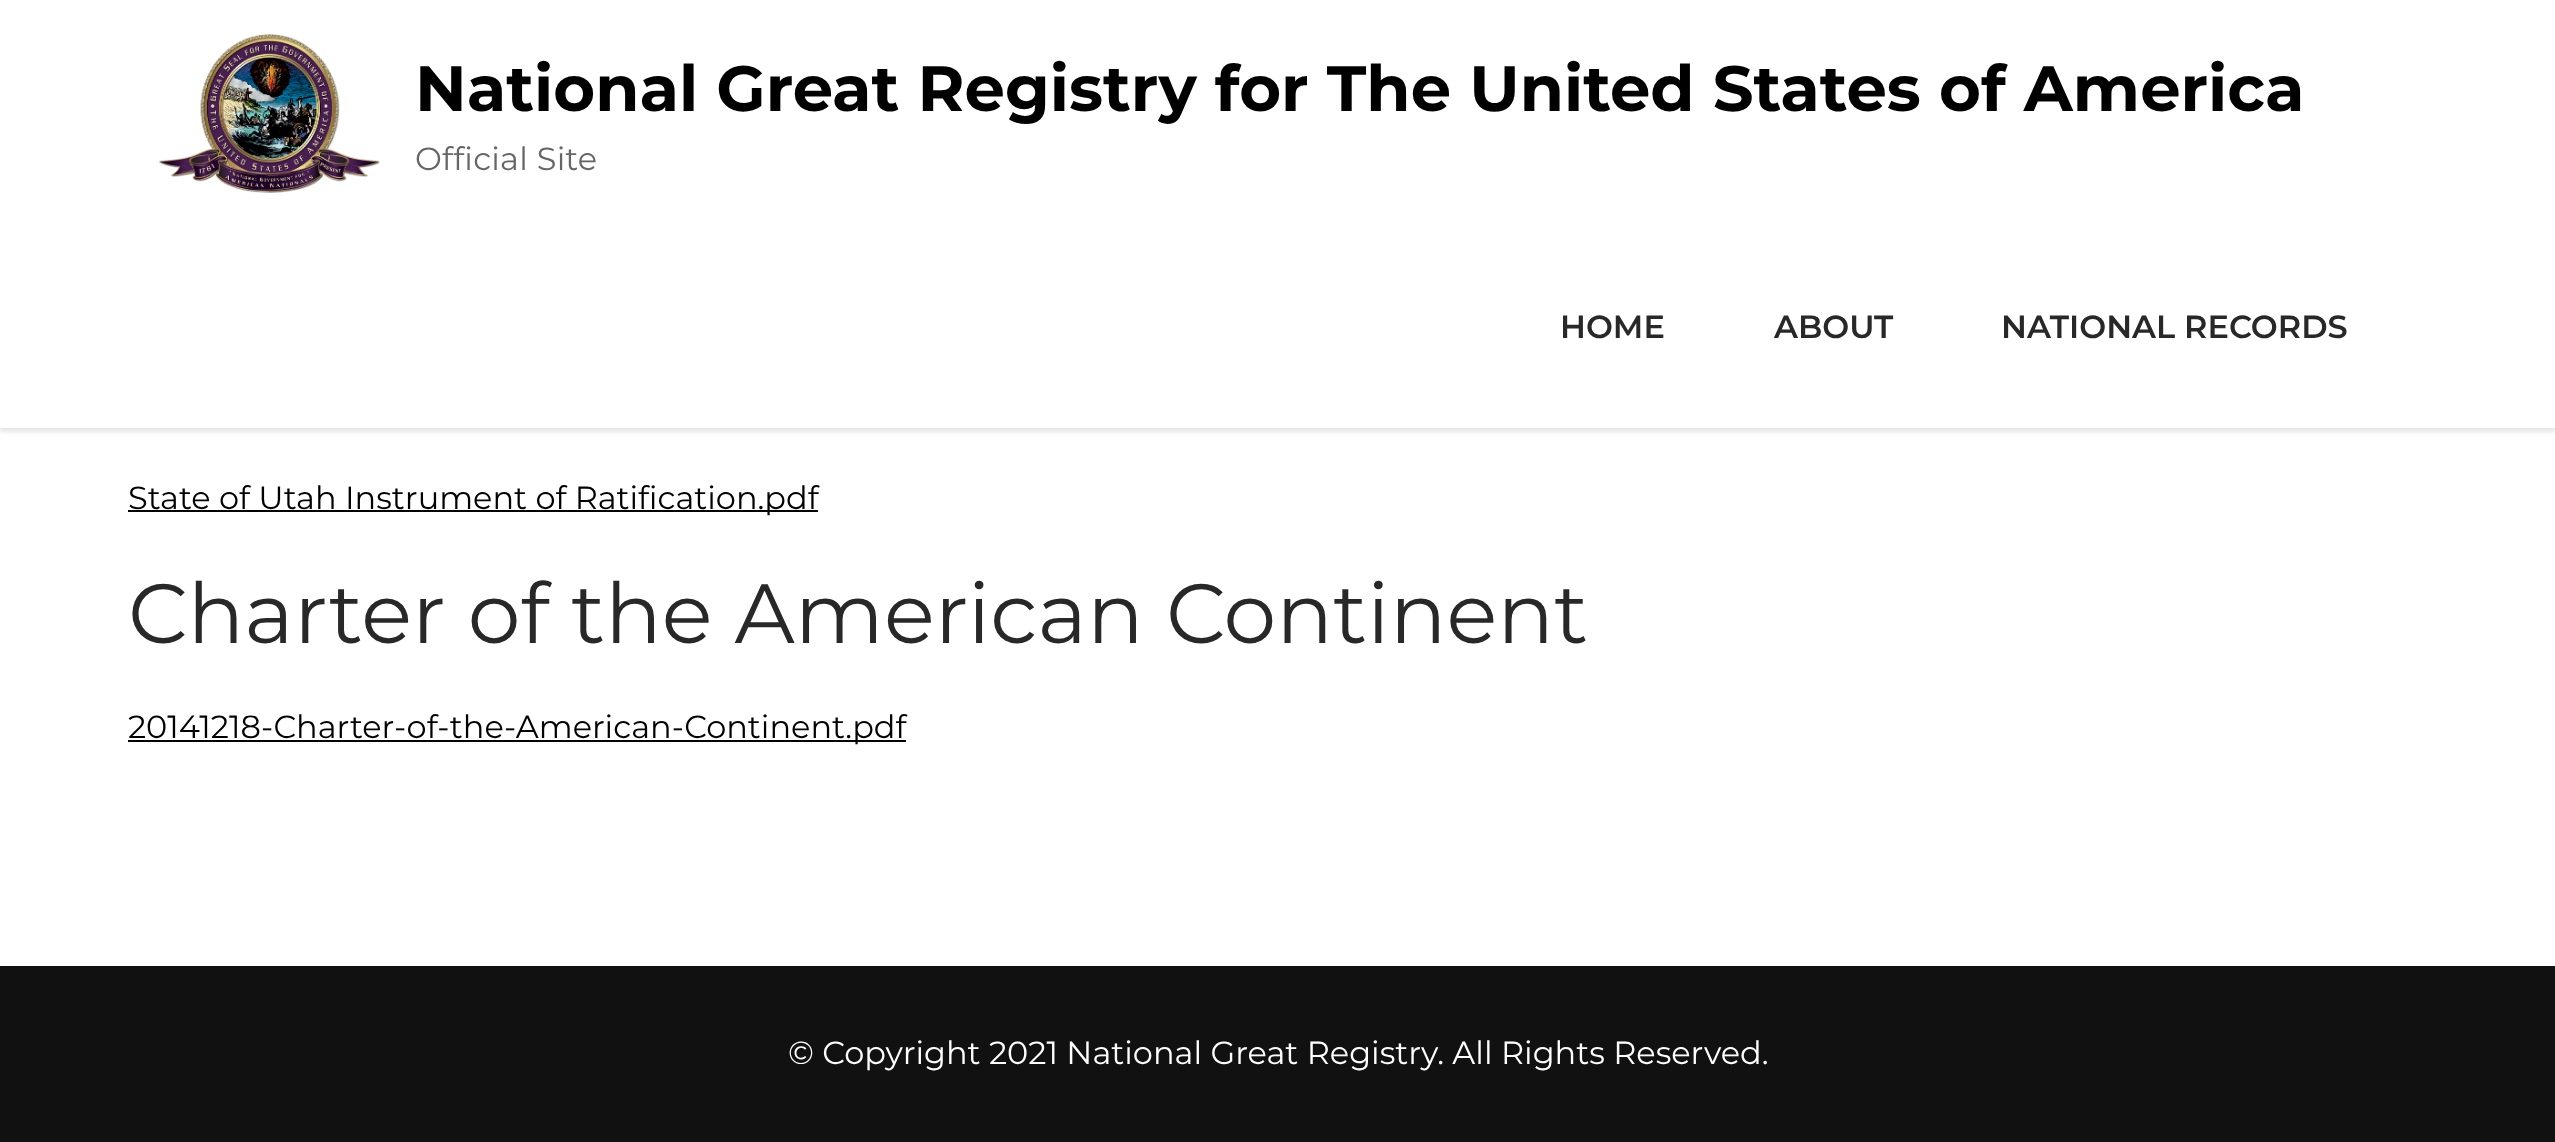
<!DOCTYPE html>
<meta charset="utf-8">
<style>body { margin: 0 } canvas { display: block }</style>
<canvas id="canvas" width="2555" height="1142"></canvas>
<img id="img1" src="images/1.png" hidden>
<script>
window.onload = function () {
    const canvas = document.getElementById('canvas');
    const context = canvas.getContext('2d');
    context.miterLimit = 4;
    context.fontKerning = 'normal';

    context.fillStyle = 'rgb(255, 255, 255)';
    context.fillRect(0, 0, 2555, 1142);
    context.fillStyle = 'rgba(0, 0, 0, 0.1)';
    context.filter = 'blur(2px)';
    context.beginPath();
    context.rect(0, 4, 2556, 428);
    context.fill();
    context.filter = 'none';
    context.fillStyle = 'rgb(255, 255, 255)';
    context.fillRect(0, 1, 2555, 427);
    context.drawImage(document.getElementById('img1'), 159, 34, 221, 159);
    context.fillStyle = 'rgb(0, 0, 0)';
    context.fillRect(128, 510, 690, 2);
    context.fillRect(128, 740, 778, 2);
    context.fillStyle = 'rgb(17, 17, 17)';
    context.fillRect(0, 966, 2555, 176);
    context.font = 'bold 64px Montserrat';
    context.fillStyle = 'rgb(0, 0, 0)';
    context.fillText('National Great Registry for The United States of America', 415, 111);
    context.letterSpacing = '0.25px';
    context.font = '32px Montserrat';
    context.fillStyle = 'rgb(102, 102, 102)';
    context.fillText('Official Site', 415, 170);
    context.letterSpacing = '0px';
    context.font = '600 32px Montserrat';
    context.fillStyle = 'rgb(40, 40, 40)';
    context.fillText('HOME', 1560, 338);
    context.fillText('ABOUT', 1774, 338);
    context.fillText('NATIONAL RECORDS', 2001, 338);
    context.font = '32px Montserrat';
    context.fillStyle = 'rgb(0, 0, 0)';
    context.fillText('State of Utah Instrument of Ratification.pdf', 128, 509);
    context.font = '84px Montserrat';
    context.fillStyle = 'rgb(40, 40, 40)';
    context.fillText('Charter of the American Continent', 128, 643);
    context.font = '32px Montserrat';
    context.fillStyle = 'rgb(0, 0, 0)';
    context.fillText('20141218-Charter-of-the-American-Continent.pdf', 128, 738);
    context.fillStyle = 'rgb(255, 255, 255)';
    context.fillText('© Copyright 2021 National Great Registry. All Rights Reserved.', 788, 1064);
};
</script>
